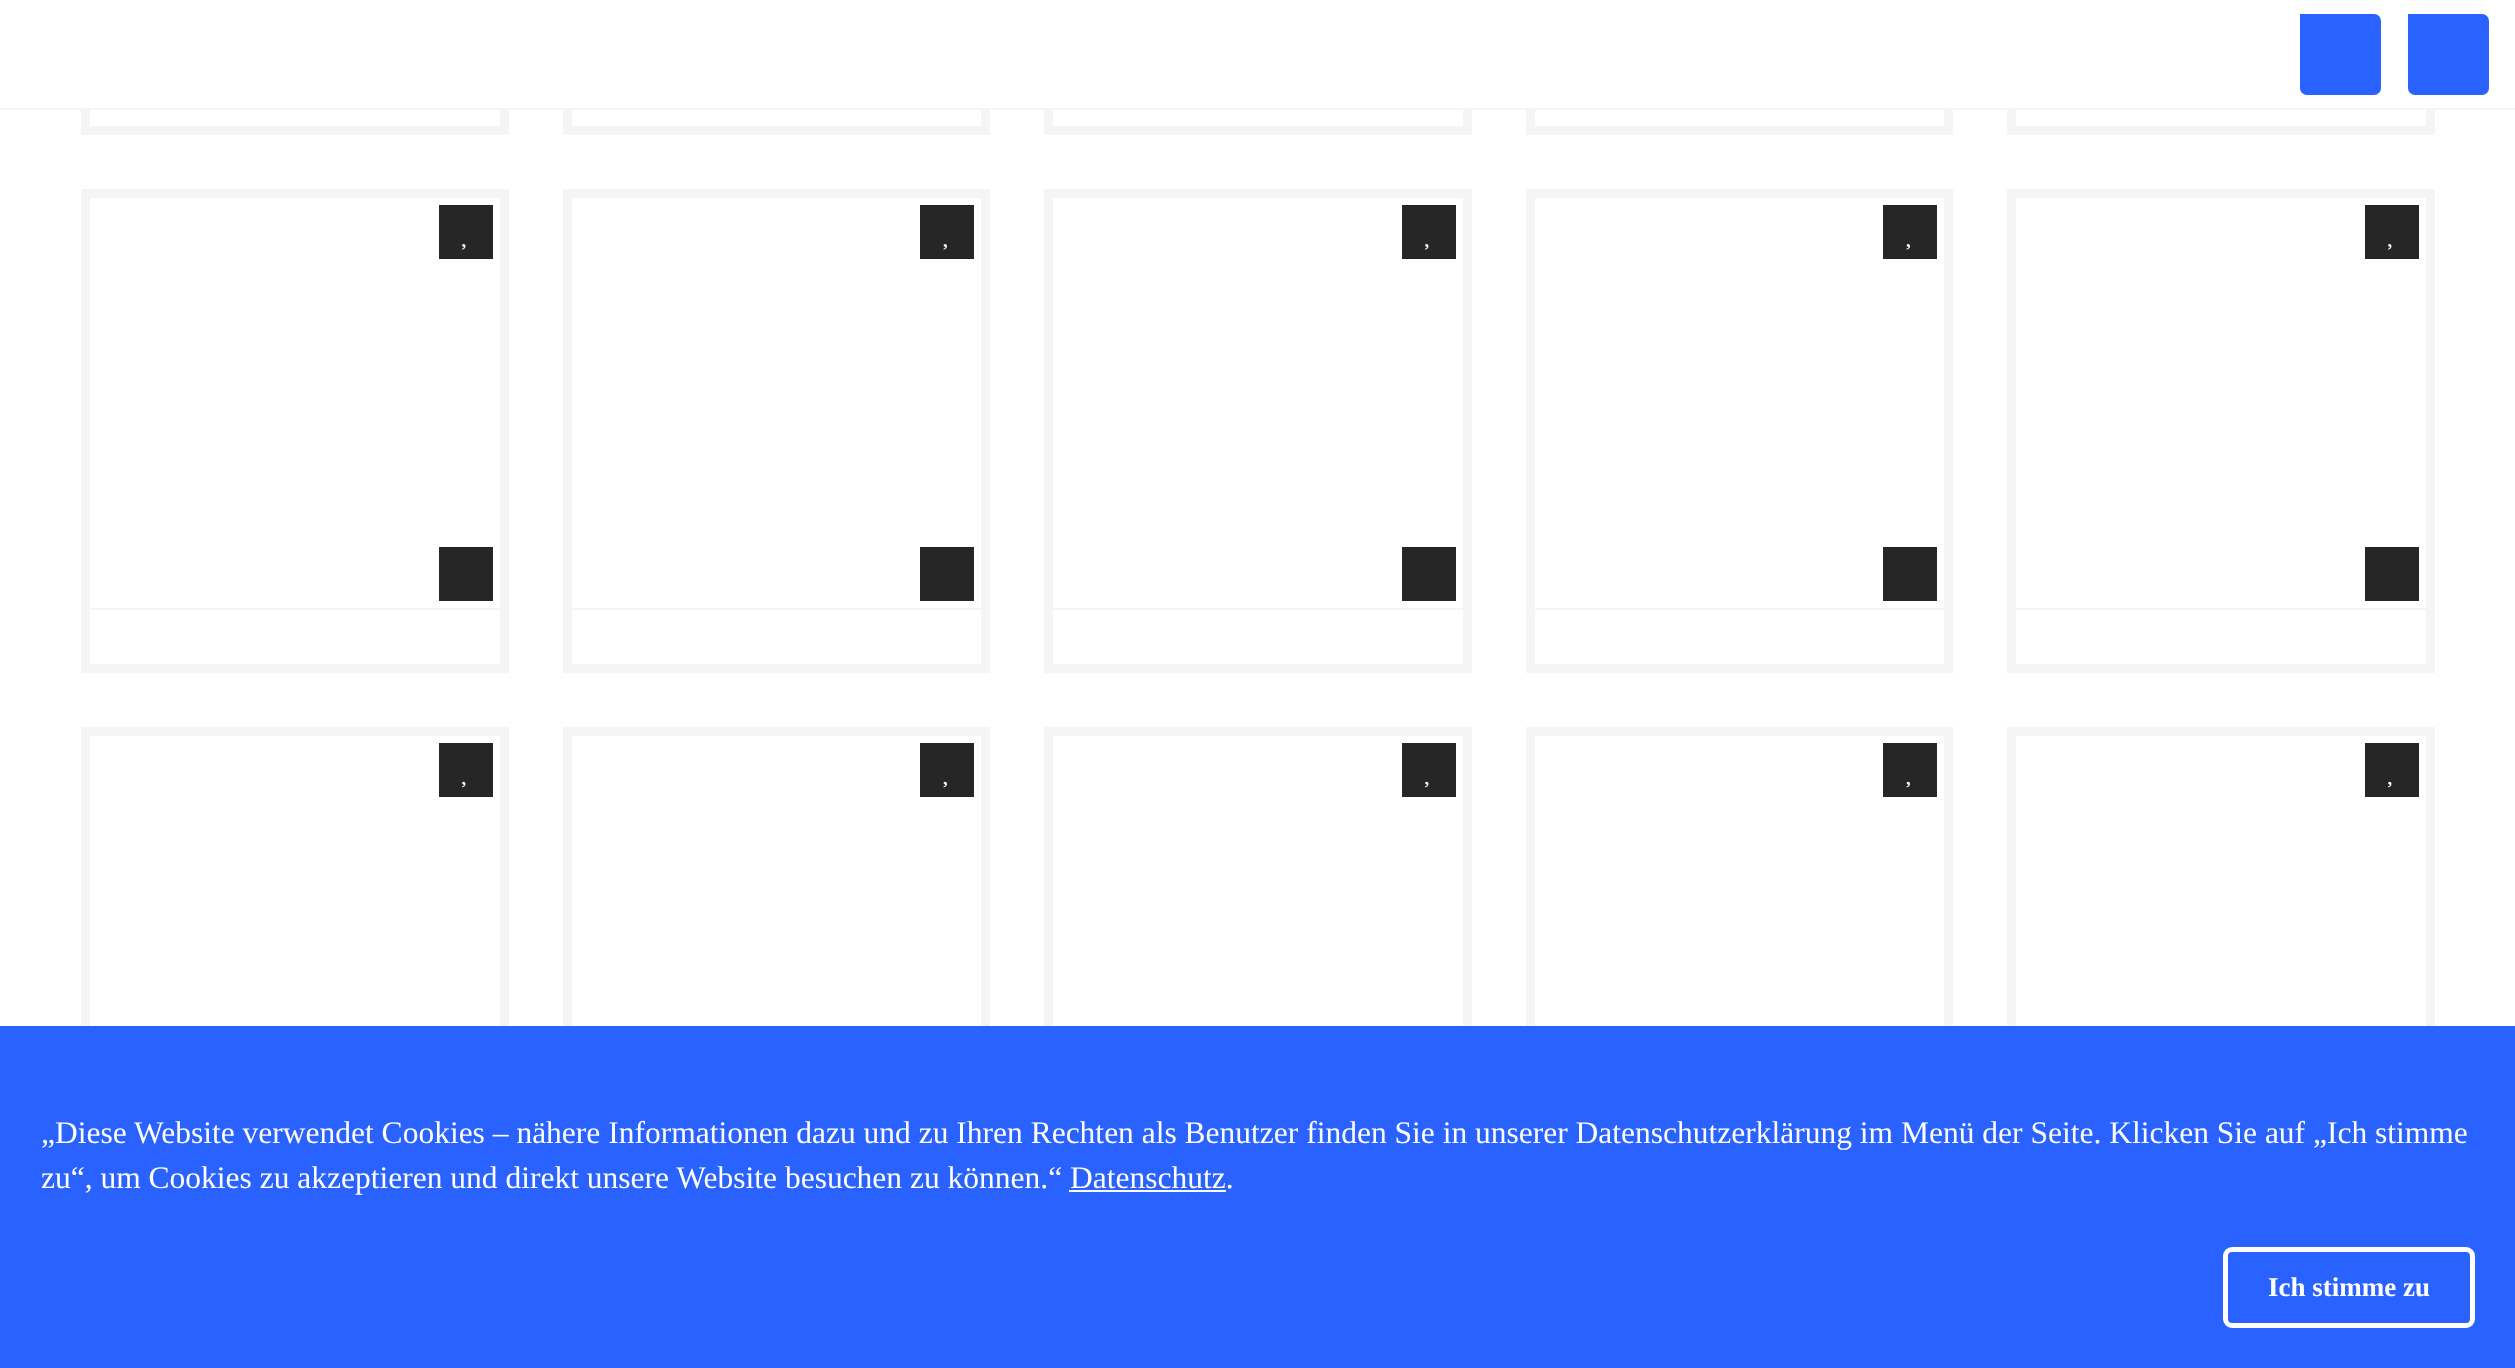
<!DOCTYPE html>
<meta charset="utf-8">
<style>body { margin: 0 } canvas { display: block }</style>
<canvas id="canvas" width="2515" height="1368"></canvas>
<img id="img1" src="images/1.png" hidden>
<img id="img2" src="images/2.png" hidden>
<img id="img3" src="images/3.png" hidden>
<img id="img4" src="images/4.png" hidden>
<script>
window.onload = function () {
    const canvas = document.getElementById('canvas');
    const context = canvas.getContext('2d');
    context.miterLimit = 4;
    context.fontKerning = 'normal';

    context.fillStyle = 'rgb(255, 255, 255)';
    context.fillRect(0, 0, 2515, 1368);
    context.strokeStyle = 'rgb(245, 245, 245)';
    context.lineWidth = 9;
    context.strokeRect(85.5, -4.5, 419, 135);
    context.strokeRect(567.5, -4.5, 418, 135);
    context.strokeRect(1048.5, -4.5, 419, 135);
    context.strokeRect(1530.5, -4.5, 418, 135);
    context.strokeRect(2011.5, -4.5, 419, 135);
    context.strokeRect(85.5, 193.5, 419, 475);
    context.fillStyle = 'rgb(38, 38, 38)';
    context.fillRect(439, 205, 54, 54);
    context.drawImage(document.getElementById('img1'), 462, 244, 4, 6);
    context.fillRect(439, 547, 54, 54);
    context.fillStyle = 'rgb(245, 245, 245)';
    context.fillRect(90, 608, 410, 2);
    context.strokeRect(567.5, 193.5, 418, 475);
    context.fillStyle = 'rgb(38, 38, 38)';
    context.fillRect(920, 205, 54, 54);
    context.drawImage(document.getElementById('img2'), 943, 244, 4, 6);
    context.fillRect(920, 547, 54, 54);
    context.fillStyle = 'rgb(245, 245, 245)';
    context.fillRect(572, 608, 409, 2);
    context.strokeRect(1048.5, 193.5, 419, 475);
    context.fillStyle = 'rgb(38, 38, 38)';
    context.fillRect(1402, 205, 54, 54);
    context.drawImage(document.getElementById('img1'), 1425, 244, 4, 6);
    context.fillRect(1402, 547, 54, 54);
    context.fillStyle = 'rgb(245, 245, 245)';
    context.fillRect(1053, 608, 410, 2);
    context.strokeRect(1530.5, 193.5, 418, 475);
    context.fillStyle = 'rgb(38, 38, 38)';
    context.fillRect(1883, 205, 54, 54);
    context.drawImage(document.getElementById('img2'), 1906, 244, 4, 6);
    context.fillRect(1883, 547, 54, 54);
    context.fillStyle = 'rgb(245, 245, 245)';
    context.fillRect(1535, 608, 409, 2);
    context.strokeRect(2011.5, 193.5, 419, 475);
    context.fillStyle = 'rgb(38, 38, 38)';
    context.fillRect(2365, 205, 54, 54);
    context.drawImage(document.getElementById('img1'), 2388, 244, 4, 6);
    context.fillRect(2365, 547, 54, 54);
    context.fillStyle = 'rgb(245, 245, 245)';
    context.fillRect(2016, 608, 410, 2);
    context.strokeRect(85.5, 731.5, 419, 475);
    context.fillStyle = 'rgb(38, 38, 38)';
    context.fillRect(439, 743, 54, 54);
    context.drawImage(document.getElementById('img3'), 462, 781, 4, 7);
    context.strokeRect(567.5, 731.5, 418, 475);
    context.fillRect(920, 743, 54, 54);
    context.drawImage(document.getElementById('img4'), 943, 781, 4, 7);
    context.strokeRect(1048.5, 731.5, 419, 475);
    context.fillRect(1402, 743, 54, 54);
    context.drawImage(document.getElementById('img3'), 1425, 781, 4, 7);
    context.strokeRect(1530.5, 731.5, 418, 475);
    context.fillRect(1883, 743, 54, 54);
    context.drawImage(document.getElementById('img4'), 1906, 781, 4, 7);
    context.strokeRect(2011.5, 731.5, 419, 475);
    context.fillRect(2365, 743, 54, 54);
    context.drawImage(document.getElementById('img3'), 2388, 781, 4, 7);
    context.fillStyle = 'rgb(255, 255, 255)';
    context.fillRect(81, 0, 2354, 108);
    context.fillStyle = 'rgb(245, 245, 245)';
    context.fillRect(0, 108, 2515, 2);
    context.fillStyle = 'rgb(41, 98, 255)';
    context.beginPath();
    context.roundRect(2300, 14, 81, 81, [0, 7, 7, 7]);
    context.fill();
    context.beginPath();
    context.roundRect(2408, 14, 81, 81, [0, 7, 7, 7]);
    context.fill();
    context.fillRect(0, 1026, 2515, 342);
    context.fillStyle = 'rgb(255, 255, 255)';
    context.fillRect(1069, 1190, 157, 2);
    context.beginPath();
    context.roundRect(2225.5, 1249.5, 247, 76, 6.5);
    context.strokeStyle = 'rgb(255, 255, 255)';
    context.lineWidth = 5;
    context.stroke();
    context.font = '31.5px Liberation Serif';
    context.fillText('„Diese Website verwendet Cookies – nähere Informationen dazu und zu Ihren Rechten als Benutzer finden Sie in unserer Datenschutzerklärung im Menü der Seite. Klicken Sie auf „Ich stimme', 41, 1143);
    context.fillText('zu“, um Cookies zu akzeptieren und direkt unsere Website besuchen zu können.“ Datenschutz.', 41, 1188);
    context.font = 'bold 27px Liberation Serif';
    context.fillText('Ich stimme zu', 2268, 1296);
};
</script>
